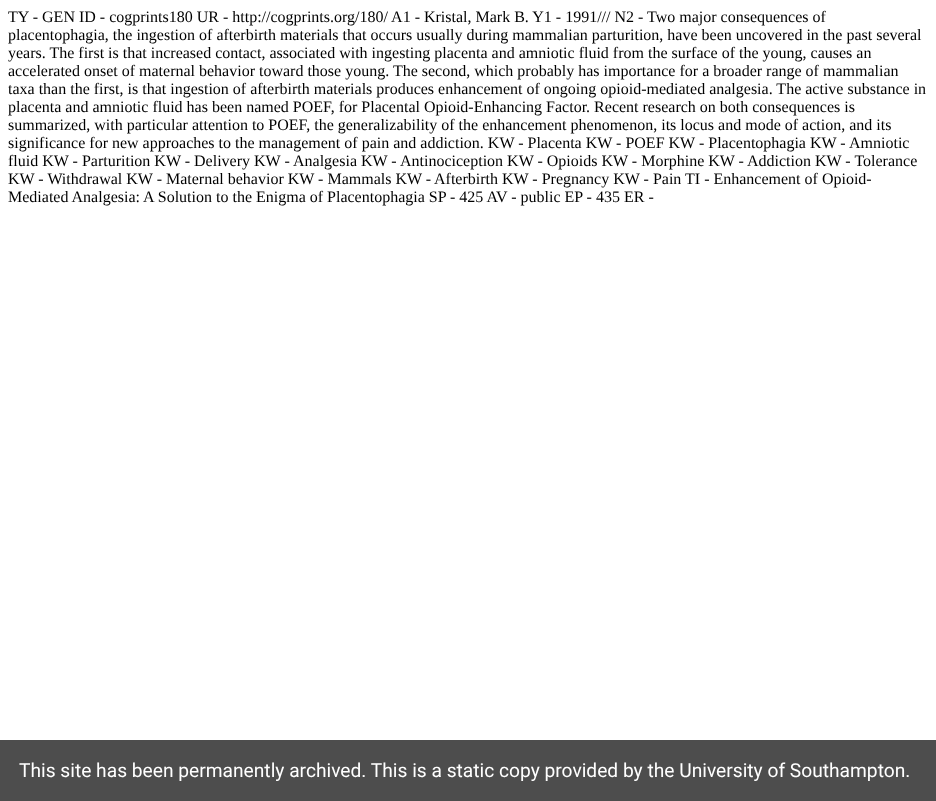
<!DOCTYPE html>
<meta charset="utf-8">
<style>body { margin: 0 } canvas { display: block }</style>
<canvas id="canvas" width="936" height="801"></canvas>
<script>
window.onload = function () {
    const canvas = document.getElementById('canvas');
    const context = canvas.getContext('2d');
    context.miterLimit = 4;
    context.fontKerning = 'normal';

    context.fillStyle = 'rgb(255, 255, 255)';
    context.fillRect(0, 0, 936, 801);
    context.fillStyle = 'rgb(77, 77, 77)';
    context.fillRect(0, 740, 936, 61);
    context.font = '16px Liberation Serif';
    context.fillStyle = 'rgb(0, 0, 0)';
    context.fillText('TY - GEN ID - cogprints180 UR - http://cogprints.org/180/ A1 - Kristal, Mark B. Y1 - 1991/// N2 - Two major consequences of', 8, 22);
    context.fillText('placentophagia, the ingestion of afterbirth materials that occurs usually during mammalian parturition, have been uncovered in the past several', 8, 40);
    context.fillText('years. The first is that increased contact, associated with ingesting placenta and amniotic fluid from the surface of the young, causes an', 8, 58);
    context.fillText('accelerated onset of maternal behavior toward those young. The second, which probably has importance for a broader range of mammalian', 8, 76);
    context.fillText('taxa than the first, is that ingestion of afterbirth materials produces enhancement of ongoing opioid-mediated analgesia. The active substance in', 8, 94);
    context.fillText('placenta and amniotic fluid has been named POEF, for Placental Opioid-Enhancing Factor. Recent research on both consequences is', 8, 112);
    context.fillText('summarized, with particular attention to POEF, the generalizability of the enhancement phenomenon, its locus and mode of action, and its', 8, 130);
    context.fillText('significance for new approaches to the management of pain and addiction. KW - Placenta KW - POEF KW - Placentophagia KW -', 8, 148);
    context.fillText('Amniotic', 849, 148);
    context.fillText('fluid KW - Parturition KW - Delivery KW -', 8, 166);
    context.fillText('Analgesia KW -', 293, 166);
    context.fillText('Antinociception KW - Opioids KW - Morphine KW -', 400, 166);
    context.fillText('Addiction KW - Tolerance', 747, 166);
    context.fillText('KW - Withdrawal KW - Maternal behavior KW - Mammals KW -', 8, 184);
    context.fillText('Afterbirth KW - Pregnancy KW - Pain TI - Enhancement of Opioid-', 434, 184);
    context.fillText('Mediated Analgesia: A Solution to the Enigma of Placentophagia SP - 425 AV - public EP - 435 ER -', 8, 202);
    context.font = '19.2px Roboto';
    context.fillStyle = 'rgb(255, 255, 255)';
    context.fillText('This site has been permanently archived. This is a static copy provided by the University of Southampton.', 19, 777);
};
</script>
